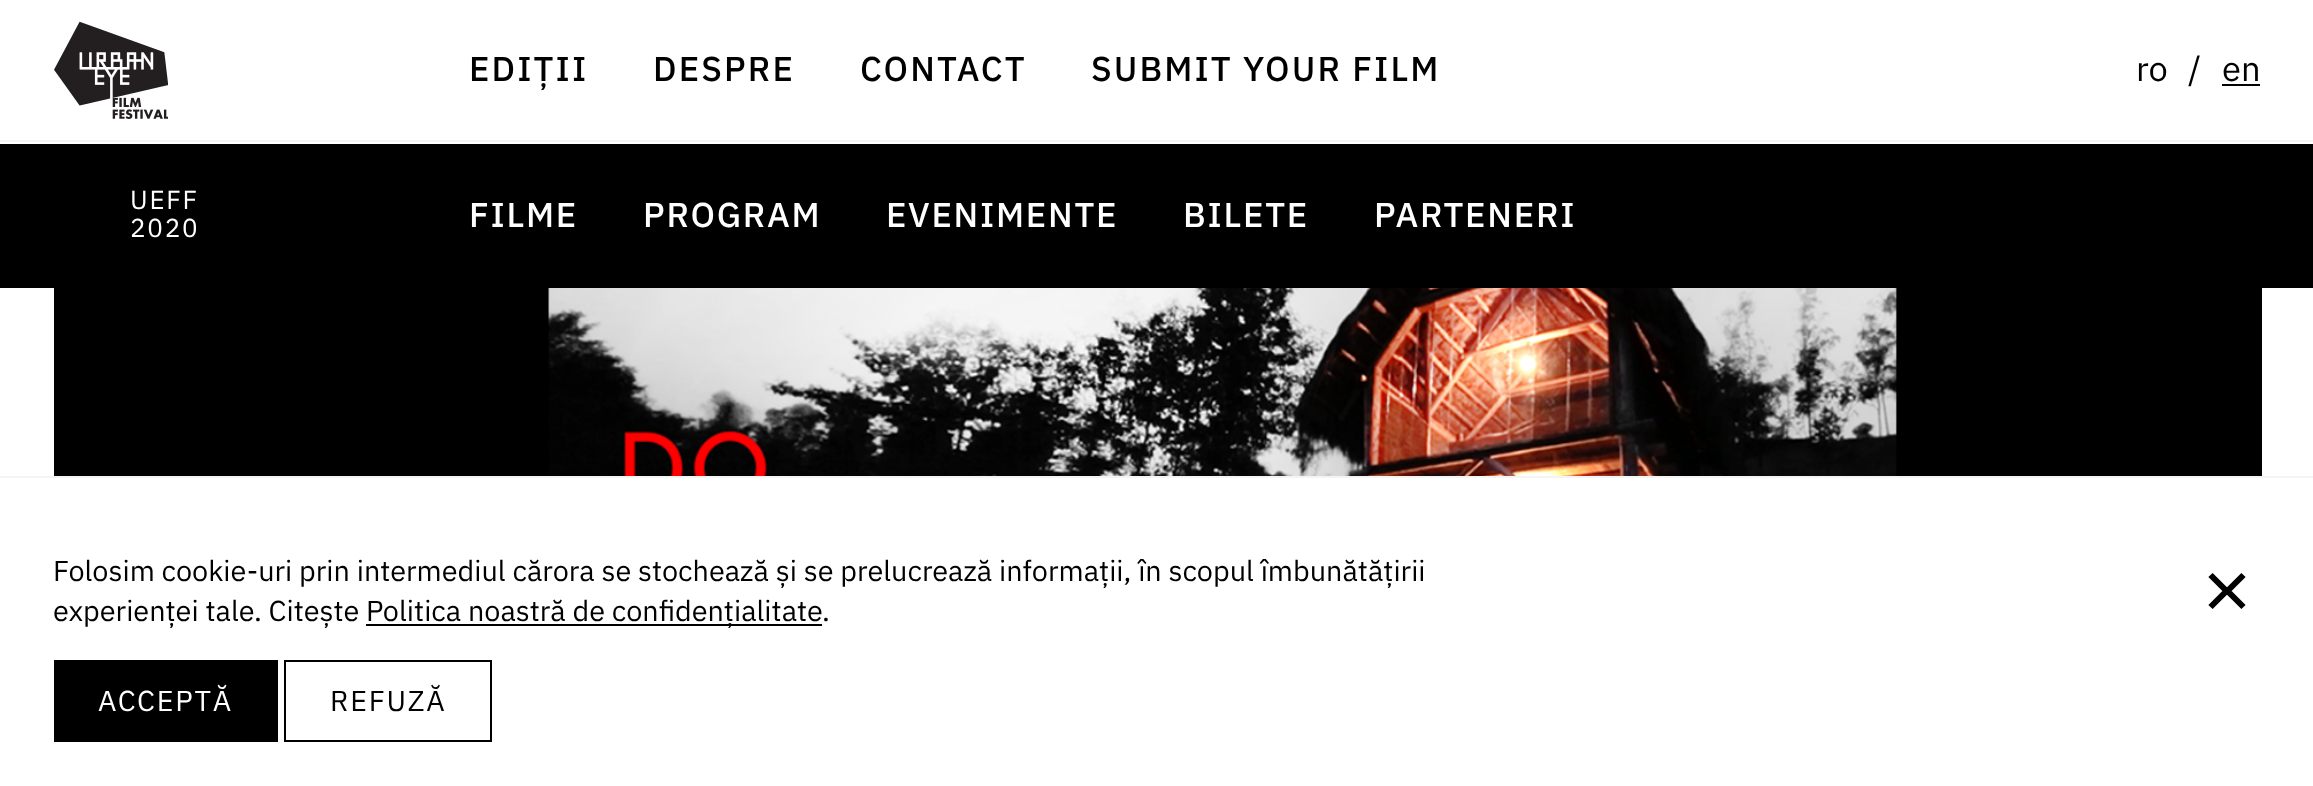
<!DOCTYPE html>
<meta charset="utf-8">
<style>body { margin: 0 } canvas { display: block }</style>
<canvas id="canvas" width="2313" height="786"></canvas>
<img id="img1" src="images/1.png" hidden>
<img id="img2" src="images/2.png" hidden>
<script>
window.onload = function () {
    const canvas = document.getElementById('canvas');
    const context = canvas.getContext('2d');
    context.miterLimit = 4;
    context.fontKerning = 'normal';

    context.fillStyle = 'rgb(255, 255, 255)';
    context.fillRect(0, 0, 2313, 786);
    context.fillStyle = 'rgb(244, 244, 244)';
    context.fillRect(0, 140, 2313, 2);
    context.drawImage(document.getElementById('img1'), 54, 21, 114, 98);
    context.fillStyle = 'rgb(0, 0, 0)';
    context.fillRect(2222, 84, 38, 2);
    context.fillRect(0, 144, 2313, 144);
    context.drawImage(document.getElementById('img2'), 54, 288, 2208, 188);
    context.fillStyle = 'rgb(244, 244, 244)';
    context.fillRect(0, 476, 2313, 2);
    context.fillStyle = 'rgb(0, 0, 0)';
    context.fillRect(366, 624, 456, 2);
    context.beginPath();
    context.moveTo(2210.5, 575);
    context.lineTo(2226.5, 591);
    context.lineTo(2210.5, 607);
    context.moveTo(2243.5, 607);
    context.lineTo(2227.5, 591);
    context.lineTo(2243.5, 575);
    context.strokeStyle = 'rgb(0, 0, 0)';
    context.lineWidth = 6;
    context.stroke();
    context.fillRect(54, 660, 224, 82);
    context.lineWidth = 2;
    context.strokeRect(285, 661, 206, 80);
    context.letterSpacing = '2.1px';
    context.font = '500 34.5px IBM Plex Sans';
    context.fillText('EDIȚII', 469, 81);
    context.fillText('DESPRE', 653, 81);
    context.fillText('CONTACT', 860, 81);
    context.fillText('SUBMIT YOUR FILM', 1091, 81);
    context.letterSpacing = '0px';
    context.font = '34.5px IBM Plex Sans';
    context.fillText('ro', 2136, 81);
    context.fillText('/', 2188, 81);
    context.fillText('en', 2222, 81);
    context.letterSpacing = '1.75px';
    context.font = '26px IBM Plex Sans';
    context.fillStyle = 'rgb(255, 255, 255)';
    context.fillText('UEFF', 130, 209);
    context.fillText('2020', 130, 237);
    context.font = '500 34.5px IBM Plex Sans';
    context.fillText('FILME', 469, 227);
    context.fillText('PROGRAM', 643, 227);
    context.fillText('EVENIMENTE', 886, 227);
    context.fillText('BILETE', 1183, 227);
    context.fillText('PARTENERI', 1374, 227);
    context.letterSpacing = '0px';
    context.font = '28.8px IBM Plex Sans';
    context.fillStyle = 'rgb(0, 0, 0)';
    context.fillText('Folosim cookie-uri prin intermediul cărora se stochează și se prelucrează informații, în scopul îmbunătățirii', 53, 581);
    context.fillText('experienței tale. Citește', 53, 621);
    context.fillText('Politica noastră de confidențialitate', 366, 621);
    context.fillText('.', 822, 621);
    context.letterSpacing = '1.75px';
    context.fillStyle = 'rgb(255, 255, 255)';
    context.fillText('ACCEPTĂ', 98, 711);
    context.fillStyle = 'rgb(0, 0, 0)';
    context.fillText('REFUZĂ', 330, 711);
};
</script>
